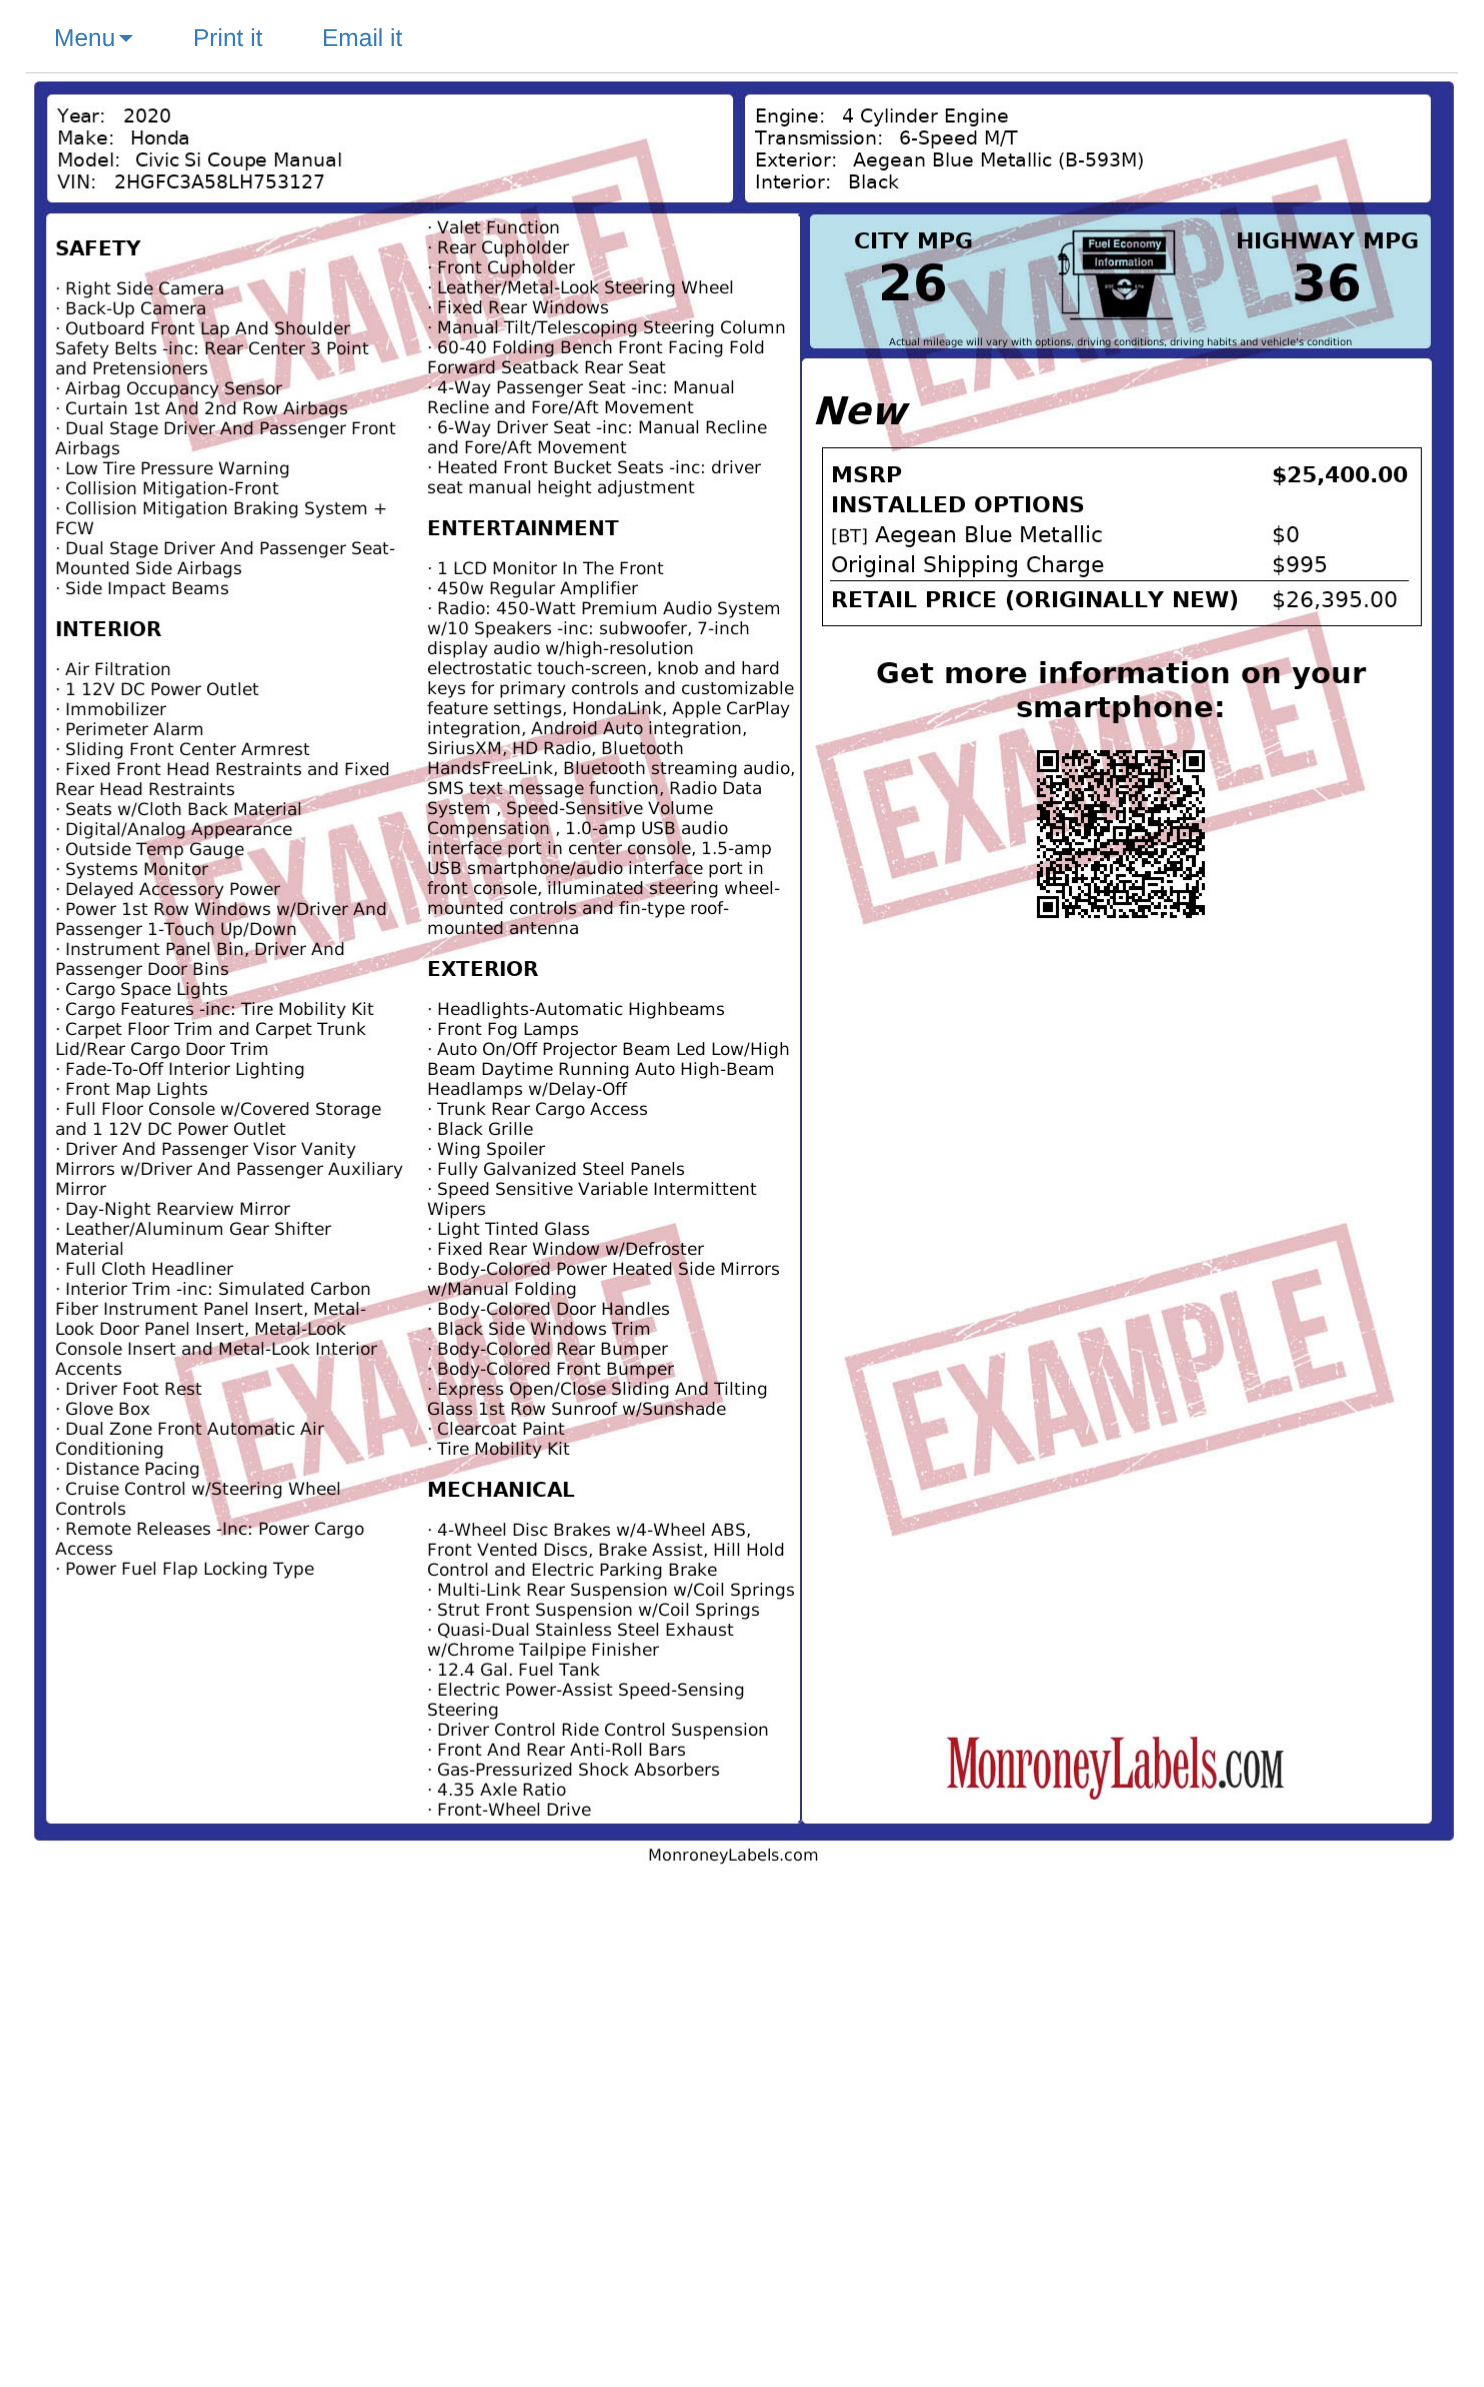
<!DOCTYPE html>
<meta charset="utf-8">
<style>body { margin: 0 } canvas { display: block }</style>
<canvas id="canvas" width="1484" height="2387"></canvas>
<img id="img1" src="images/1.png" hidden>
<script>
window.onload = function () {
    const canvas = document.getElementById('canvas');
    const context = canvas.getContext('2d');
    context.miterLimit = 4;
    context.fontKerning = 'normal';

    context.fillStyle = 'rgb(255, 255, 255)';
    context.fillRect(0, 0, 1484, 2387);
    context.fillStyle = 'rgb(221, 221, 221)';
    context.fillRect(26, 72, 1432, 2);
    context.fillStyle = 'rgb(51, 122, 183)';
    context.beginPath();
    context.moveTo(119, 35);
    context.lineTo(133, 35);
    context.lineTo(126, 42);
    context.closePath();
    context.fill();
    context.drawImage(document.getElementById('img1'), 26, 73, 1432, 1792);
    context.font = '24.5px Liberation Sans';
    context.fillText('Menu', 54, 46);
    context.fillText('Print it', 193, 46);
    context.fillText('Email it', 322, 46);
};
</script>
